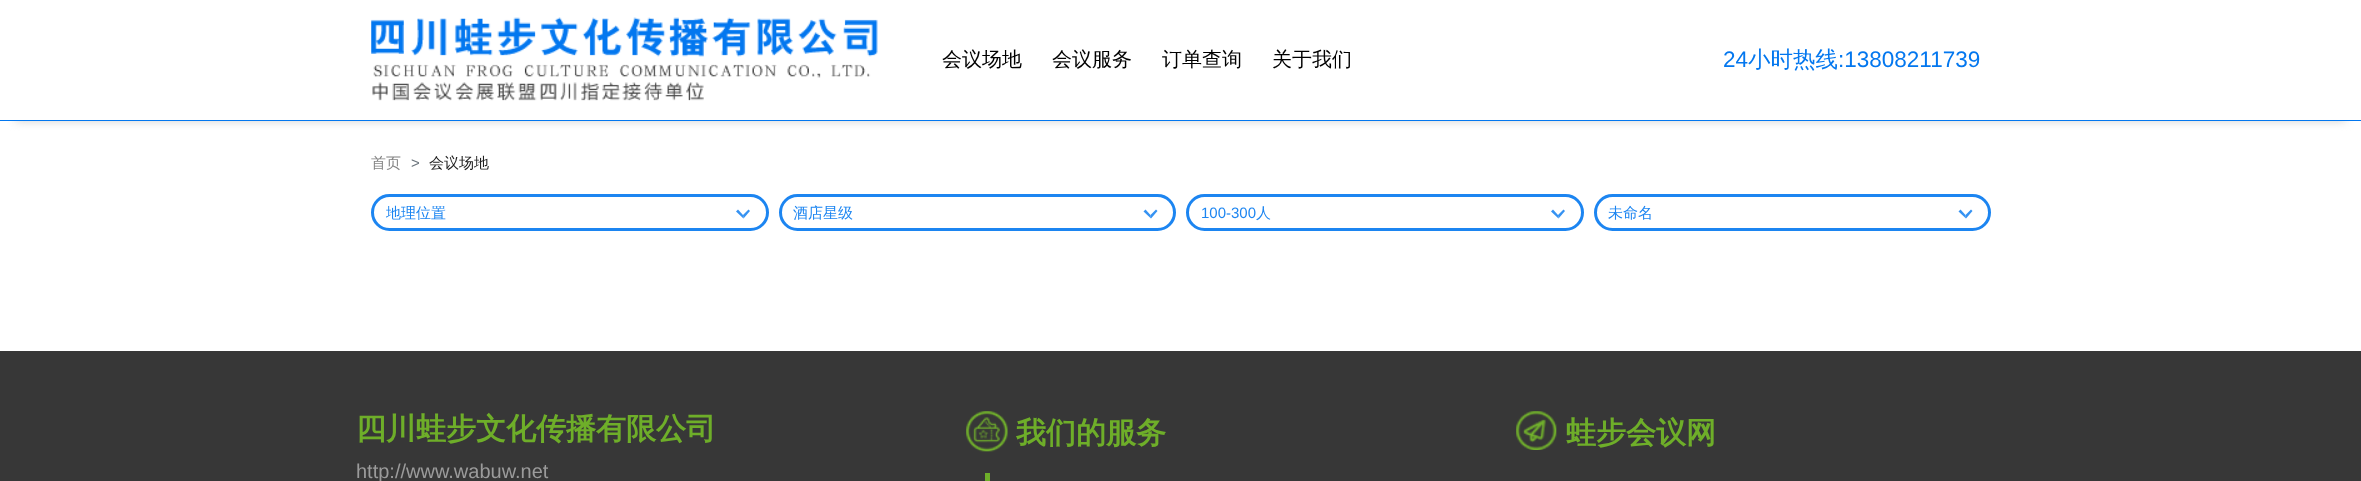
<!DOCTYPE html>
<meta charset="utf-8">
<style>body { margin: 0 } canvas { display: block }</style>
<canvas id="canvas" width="2361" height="481"></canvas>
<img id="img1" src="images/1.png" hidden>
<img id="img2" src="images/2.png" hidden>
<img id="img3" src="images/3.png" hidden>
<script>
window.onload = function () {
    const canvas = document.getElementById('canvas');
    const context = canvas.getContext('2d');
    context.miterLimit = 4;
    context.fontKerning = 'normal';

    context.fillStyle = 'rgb(255, 255, 255)';
    context.fillRect(0, 0, 2361, 481);
    context.save();
    context.beginPath();
    context.rect(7, 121, 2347, 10);
    context.clip();
    context.fillStyle = 'rgb(209, 209, 209)';
    context.filter = 'blur(5px)';
    context.beginPath();
    context.rect(15, 30, 2331, 91);
    context.fill();
    context.filter = 'none';
    context.restore();
    context.fillStyle = 'rgb(3, 119, 239)';
    context.fillRect(0, 120, 2361, 1);
    context.drawImage(document.getElementById('img1'), 371, 17, 507, 84);
    context.beginPath();
    context.roundRect(372.5, 195.5, 395, 34, 17);
    context.strokeStyle = 'rgb(28, 133, 241)';
    context.lineWidth = 3;
    context.stroke();
    context.fillStyle = 'rgb(53, 146, 242)';
    context.beginPath();
    context.moveTo(750, 211);
    context.lineTo(743.5, 218.5);
    context.lineTo(743, 215);
    context.lineTo(748.5, 209.5);
    context.closePath();
    context.fill();
    context.beginPath();
    context.moveTo(743.5, 218.5);
    context.lineTo(736, 211.5);
    context.lineTo(738, 209.5);
    context.lineTo(743, 215);
    context.closePath();
    context.fill();
    context.beginPath();
    context.roundRect(780.5, 195.5, 394, 34, 17);
    context.stroke();
    context.beginPath();
    context.moveTo(1157.5, 211);
    context.lineTo(1151, 218.5);
    context.lineTo(1150.5, 215);
    context.lineTo(1156, 209.5);
    context.closePath();
    context.fill();
    context.fillStyle = 'rgba(3, 119, 239, 0.8)';
    context.beginPath();
    context.moveTo(1151, 218.5);
    context.lineTo(1143.5, 211.5);
    context.lineTo(1145.5, 209.5);
    context.lineTo(1150.5, 215);
    context.closePath();
    context.fill();
    context.beginPath();
    context.roundRect(1187.5, 195.5, 395, 34, 17);
    context.stroke();
    context.fillStyle = 'rgb(53, 146, 242)';
    context.beginPath();
    context.moveTo(1565, 211);
    context.lineTo(1558.5, 218.5);
    context.lineTo(1558, 215);
    context.lineTo(1563.5, 209.5);
    context.closePath();
    context.fill();
    context.beginPath();
    context.moveTo(1558.5, 218.5);
    context.lineTo(1551, 211.5);
    context.lineTo(1553, 209.5);
    context.lineTo(1558, 215);
    context.closePath();
    context.fill();
    context.beginPath();
    context.roundRect(1595.5, 195.5, 394, 34, 17);
    context.stroke();
    context.beginPath();
    context.moveTo(1972.5, 211);
    context.lineTo(1966, 218.5);
    context.lineTo(1965.5, 215);
    context.lineTo(1971, 209.5);
    context.closePath();
    context.fill();
    context.fillStyle = 'rgba(3, 119, 239, 0.8)';
    context.beginPath();
    context.moveTo(1966, 218.5);
    context.lineTo(1958.5, 211.5);
    context.lineTo(1960.5, 209.5);
    context.lineTo(1965.5, 215);
    context.closePath();
    context.fill();
    context.fillStyle = 'rgb(55, 55, 55)';
    context.fillRect(0, 351, 2361, 130);
    context.drawImage(document.getElementById('img2'), 966, 411, 42, 41);
    context.fillStyle = 'rgb(110, 174, 41)';
    context.fillRect(985, 473, 5, 8);
    context.drawImage(document.getElementById('img3'), 1516, 411, 41, 39);
    context.font = '500 20px WenQuanYi Zen Hei';
    context.fillStyle = 'rgb(0, 0, 0)';
    context.fillText('会议场地', 942, 66);
    context.fillText('会议服务', 1052, 66);
    context.fillText('订单查询', 1162, 66);
    context.fillText('关于我们', 1272, 66);
    context.font = '22.5px Liberation Sans';
    context.fillStyle = 'rgb(3, 119, 239)';
    context.fillText('24', 1723, 67);
    context.font = '500 22.5px WenQuanYi Zen Hei';
    context.fillText('小时热线', 1748, 67);
    context.font = '22.5px Liberation Sans';
    context.fillText(':13808211739', 1838, 67);
    context.font = '500 15px WenQuanYi Zen Hei';
    context.fillStyle = 'rgb(132, 132, 132)';
    context.fillText('首页', 371, 168);
    context.font = '15px Liberation Sans';
    context.fillStyle = 'rgb(108, 117, 125)';
    context.fillText('>', 411, 168);
    context.font = '500 15px WenQuanYi Zen Hei';
    context.fillStyle = 'rgb(33, 33, 33)';
    context.fillText('会议场地', 429, 168);
    context.fillStyle = 'rgb(28, 133, 241)';
    context.fillText('地理位置', 386, 218);
    context.fillText('酒店星级', 793, 218);
    context.font = '15px Liberation Sans';
    context.fillText('100-300', 1201, 218);
    context.font = '500 15px WenQuanYi Zen Hei';
    context.fillText('人', 1256, 218);
    context.fillText('未命名', 1608, 218);
    context.font = 'bold 30px WenQuanYi Zen Hei';
    context.fillStyle = 'rgb(110, 174, 41)';
    context.fillText('四川蛙步文化传播有限公司', 356, 439);
    context.font = '20px Liberation Sans';
    context.fillStyle = 'rgb(155, 155, 155)';
    context.fillText('http://www.wabuw.net', 356, 478);
    context.font = 'bold 30px WenQuanYi Zen Hei';
    context.fillStyle = 'rgb(110, 174, 41)';
    context.fillText('我们的服务', 1016, 443);
    context.fillText('蛙步会议网', 1566, 443);
};
</script>
